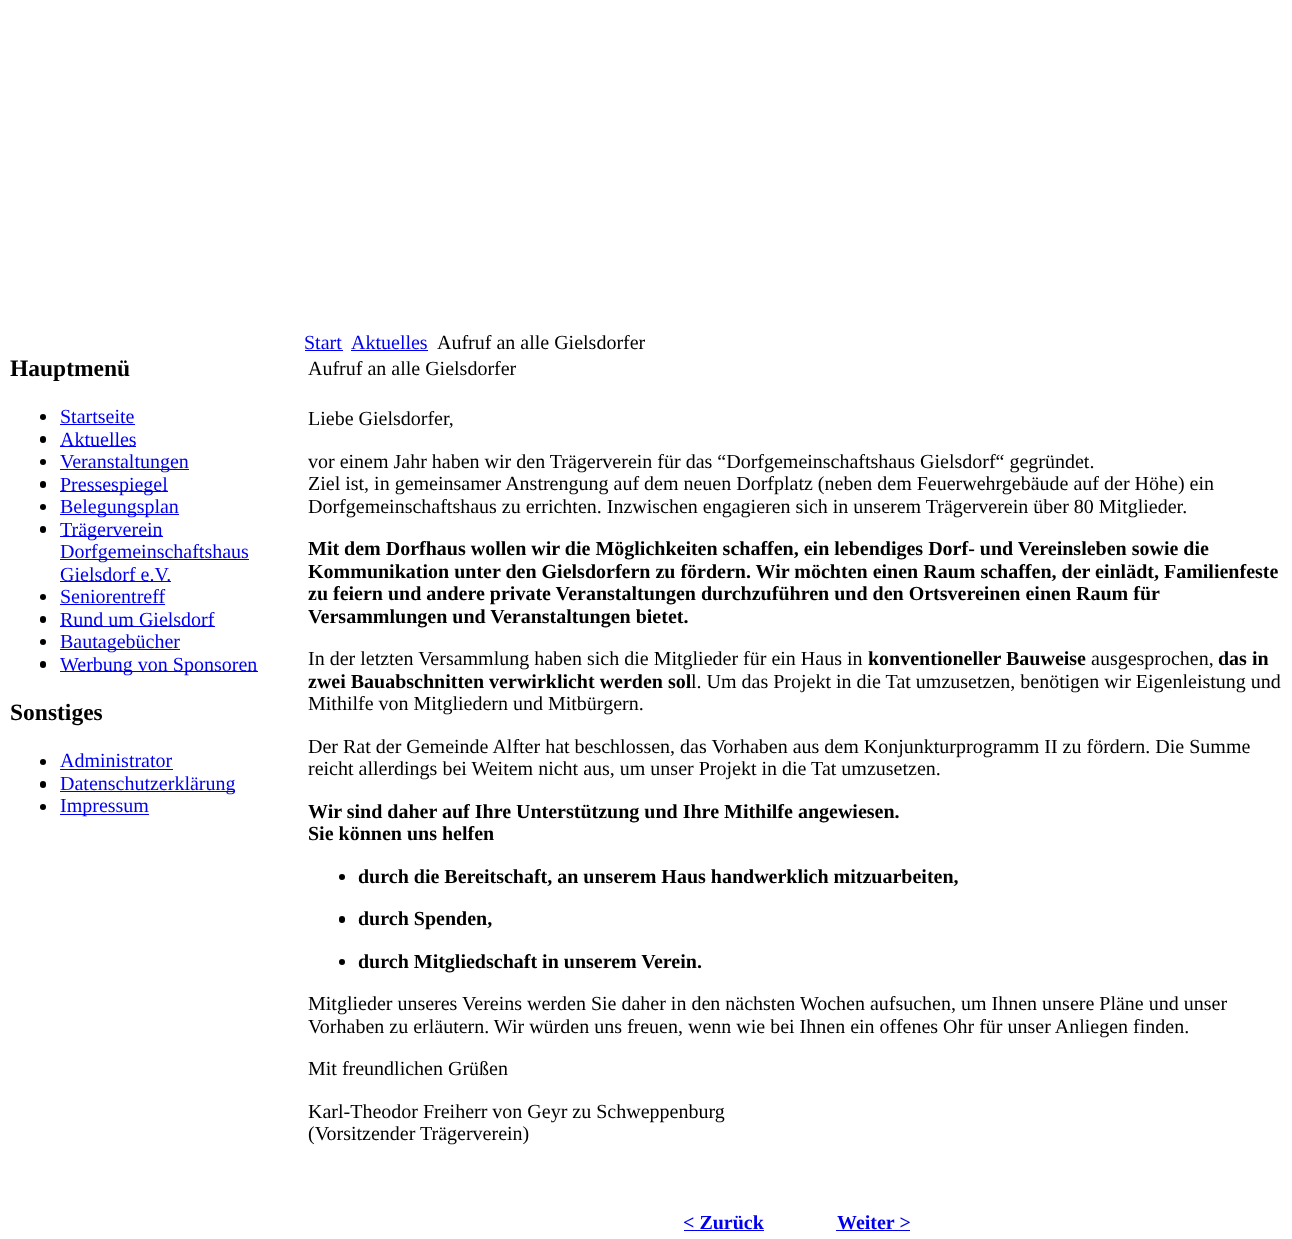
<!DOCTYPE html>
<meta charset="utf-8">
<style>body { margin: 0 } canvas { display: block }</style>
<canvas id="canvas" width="1292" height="1239"></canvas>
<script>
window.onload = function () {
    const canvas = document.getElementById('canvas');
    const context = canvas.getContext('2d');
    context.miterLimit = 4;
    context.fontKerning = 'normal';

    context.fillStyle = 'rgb(255, 255, 255)';
    context.fillRect(0, 0, 1292, 1239);
    context.fillStyle = 'rgb(0, 0, 0)';
    context.beginPath();
    context.arc(43, 417, 3, 0, 2 * Math.PI);
    context.fill();
    context.fillStyle = 'rgb(0, 0, 238)';
    context.fillRect(60, 424, 75, 1);
    context.fillStyle = 'rgb(0, 0, 0)';
    context.beginPath();
    context.roundRect(40, 436, 6, 7, 3);
    context.fill();
    context.fillStyle = 'rgb(0, 0, 238)';
    context.fillRect(60, 446, 76, 1);
    context.fillStyle = 'rgb(0, 0, 0)';
    context.beginPath();
    context.arc(43, 462, 3, 0, 2 * Math.PI);
    context.fill();
    context.fillStyle = 'rgb(0, 0, 238)';
    context.fillRect(60, 469, 129, 1);
    context.fillStyle = 'rgb(0, 0, 0)';
    context.beginPath();
    context.roundRect(40, 481, 6, 7, 3);
    context.fill();
    context.fillStyle = 'rgb(0, 0, 238)';
    context.fillRect(60, 491, 108, 1);
    context.fillStyle = 'rgb(0, 0, 0)';
    context.beginPath();
    context.arc(43, 507, 3, 0, 2 * Math.PI);
    context.fill();
    context.fillStyle = 'rgb(0, 0, 238)';
    context.fillRect(60, 514, 119, 1);
    context.fillStyle = 'rgb(0, 0, 0)';
    context.beginPath();
    context.roundRect(40, 526, 6, 7, 3);
    context.fill();
    context.fillStyle = 'rgb(0, 0, 238)';
    context.fillRect(60, 536, 103, 1);
    context.fillRect(60, 559, 189, 1);
    context.fillRect(60, 581, 111, 1);
    context.fillStyle = 'rgb(0, 0, 0)';
    context.beginPath();
    context.arc(43, 597, 3, 0, 2 * Math.PI);
    context.fill();
    context.fillStyle = 'rgb(0, 0, 238)';
    context.fillRect(60, 604, 105, 1);
    context.fillStyle = 'rgb(0, 0, 0)';
    context.beginPath();
    context.roundRect(40, 616, 6, 7, 3);
    context.fill();
    context.fillStyle = 'rgb(0, 0, 238)';
    context.fillRect(60, 626, 155, 1);
    context.fillStyle = 'rgb(0, 0, 0)';
    context.beginPath();
    context.arc(43, 642, 3, 0, 2 * Math.PI);
    context.fill();
    context.fillStyle = 'rgb(0, 0, 238)';
    context.fillRect(60, 649, 120, 1);
    context.fillStyle = 'rgb(0, 0, 0)';
    context.beginPath();
    context.roundRect(40, 661, 6, 7, 3);
    context.fill();
    context.fillStyle = 'rgb(0, 0, 238)';
    context.fillRect(60, 671, 198, 1);
    context.fillStyle = 'rgb(0, 0, 0)';
    context.beginPath();
    context.arc(43, 762, 3, 0, 2 * Math.PI);
    context.fill();
    context.fillStyle = 'rgb(0, 0, 238)';
    context.fillRect(60, 769, 113, 1);
    context.fillStyle = 'rgb(0, 0, 0)';
    context.beginPath();
    context.roundRect(40, 781, 6, 7, 3);
    context.fill();
    context.fillStyle = 'rgb(0, 0, 238)';
    context.fillRect(60, 791, 175, 1);
    context.fillStyle = 'rgb(0, 0, 0)';
    context.beginPath();
    context.arc(43, 807, 3, 0, 2 * Math.PI);
    context.fill();
    context.fillStyle = 'rgb(0, 0, 238)';
    context.fillRect(60, 814, 89, 1);
    context.fillRect(305, 350, 38, 1);
    context.fillRect(351, 350, 77, 1);
    context.fillStyle = 'rgb(0, 0, 0)';
    context.beginPath();
    context.arc(342, 877, 3, 0, 2 * Math.PI);
    context.fill();
    context.beginPath();
    context.roundRect(339, 916, 6, 7, 3);
    context.fill();
    context.beginPath();
    context.arc(342, 962, 3, 0, 2 * Math.PI);
    context.fill();
    context.fillStyle = 'rgb(0, 0, 238)';
    context.fillRect(684, 1230, 80, 1);
    context.fillRect(836, 1230, 74, 1);
    context.font = 'bold 23.5px Liberation Serif';
    context.fillStyle = 'rgb(0, 0, 0)';
    context.fillText('Hauptmenü', 10, 376);
    context.font = '20px Liberation Serif';
    context.fillStyle = 'rgb(0, 0, 238)';
    context.fillText('Startseite', 60, 423);
    context.fillText('Aktuelles', 60, 446);
    context.fillText('Veranstaltungen', 60, 468);
    context.fillText('Pressespiegel', 60, 491);
    context.fillText('Belegungsplan', 60, 513);
    context.fillText('Trägerverein', 60, 536);
    context.fillText('Dorfgemeinschaftshaus', 60, 558);
    context.fillText('Gielsdorf e.V.', 60, 581);
    context.fillText('Seniorentreff', 60, 603);
    context.fillText('Rund um Gielsdorf', 60, 626);
    context.fillText('Bautagebücher', 60, 648);
    context.fillText('Werbung von Sponsoren', 60, 671);
    context.font = 'bold 23.5px Liberation Serif';
    context.fillStyle = 'rgb(0, 0, 0)';
    context.fillText('Sonstiges', 10, 720);
    context.font = '20px Liberation Serif';
    context.fillStyle = 'rgb(0, 0, 238)';
    context.fillText('Administrator', 60, 767);
    context.fillText('Datenschutzerklärung', 60, 790);
    context.fillText('Impressum', 60, 812);
    context.fillText('Start', 304, 349);
    context.fillText('Aktuelles', 351, 349);
    context.fillStyle = 'rgb(0, 0, 0)';
    context.fillText('Aufruf an alle Gielsdorfer', 437, 349);
    context.fillText('Aufruf an alle Gielsdorfer', 308, 375);
    context.fillText('Liebe Gielsdorfer,', 308, 425);
    context.fillText('vor einem Jahr haben wir den Trägerverein für das “Dorfgemeinschaftshaus Gielsdorf“ gegründet.', 308, 468);
    context.fillText('Ziel ist, in gemeinsamer Anstrengung auf dem neuen Dorfplatz (neben dem Feuerwehrgebäude auf der Höhe) ein', 308, 490);
    context.fillText('Dorfgemeinschaftshaus zu errichten. Inzwischen engagieren sich in unserem Trägerverein über 80 Mitglieder.', 308, 513);
    context.font = 'bold 20px Liberation Serif';
    context.fillText('Mit dem Dorfhaus wollen wir die Möglichkeiten schaffen, ein lebendiges Dorf- und Vereinsleben sowie die', 308, 555);
    context.fillText('Kommunikation unter den Gielsdorfern zu fördern. Wir möchten einen Raum schaffen, der einlädt, Familienfeste', 308, 578);
    context.fillText('zu feiern und andere private Veranstaltungen durchzuführen und den Ortsvereinen einen Raum für', 308, 600);
    context.fillText('Versammlungen und Veranstaltungen bietet.', 308, 623);
    context.font = '20px Liberation Serif';
    context.fillText('In der letzten Versammlung haben sich die Mitglieder für ein Haus in', 308, 665);
    context.font = 'bold 20px Liberation Serif';
    context.fillText('konventioneller Bauweise', 868, 665);
    context.font = '20px Liberation Serif';
    context.fillText('ausgesprochen,', 1091, 665);
    context.font = 'bold 20px Liberation Serif';
    context.fillText('das in', 1218, 665);
    context.fillText('zwei Bauabschnitten verwirklicht werden sol', 308, 688);
    context.font = '20px Liberation Serif';
    context.fillText('l. Um das Projekt in die Tat umzusetzen, benötigen wir Eigenleistung und', 691, 688);
    context.fillText('Mithilfe von Mitgliedern und Mitbürgern.', 308, 710);
    context.fillText('Der Rat der Gemeinde Alfter hat beschlossen, das Vorhaben aus dem Konjunkturprogramm II zu fördern. Die Summe', 308, 753);
    context.fillText('reicht allerdings bei Weitem nicht aus, um unser Projekt in die Tat umzusetzen.', 308, 775);
    context.font = 'bold 20px Liberation Serif';
    context.fillText('Wir sind daher auf Ihre Unterstützung und Ihre Mithilfe angewiesen.', 308, 818);
    context.fillText('Sie können uns helfen', 308, 840);
    context.fillText('durch die Bereitschaft, an unserem Haus handwerklich mitzuarbeiten,', 358, 883);
    context.fillText('durch Spenden,', 358, 925);
    context.fillText('durch Mitgliedschaft in unserem Verein.', 358, 968);
    context.font = '20px Liberation Serif';
    context.fillText('Mitglieder unseres Vereins werden Sie daher in den nächsten Wochen aufsuchen, um Ihnen unsere Pläne und unser', 308, 1010);
    context.fillText('Vorhaben zu erläutern. Wir würden uns freuen, wenn wie bei Ihnen ein offenes Ohr für unser Anliegen finden.', 308, 1033);
    context.fillText('Mit freundlichen Grüßen', 308, 1075);
    context.fillText('Karl-Theodor Freiherr von Geyr zu Schweppenburg', 308, 1118);
    context.fillText('(Vorsitzender Trägerverein)', 308, 1140);
    context.font = 'bold 20px Liberation Serif';
    context.fillStyle = 'rgb(0, 0, 238)';
    context.fillText('< Zurück', 683, 1229);
    context.fillText('Weiter >', 837, 1229);
};
</script>
